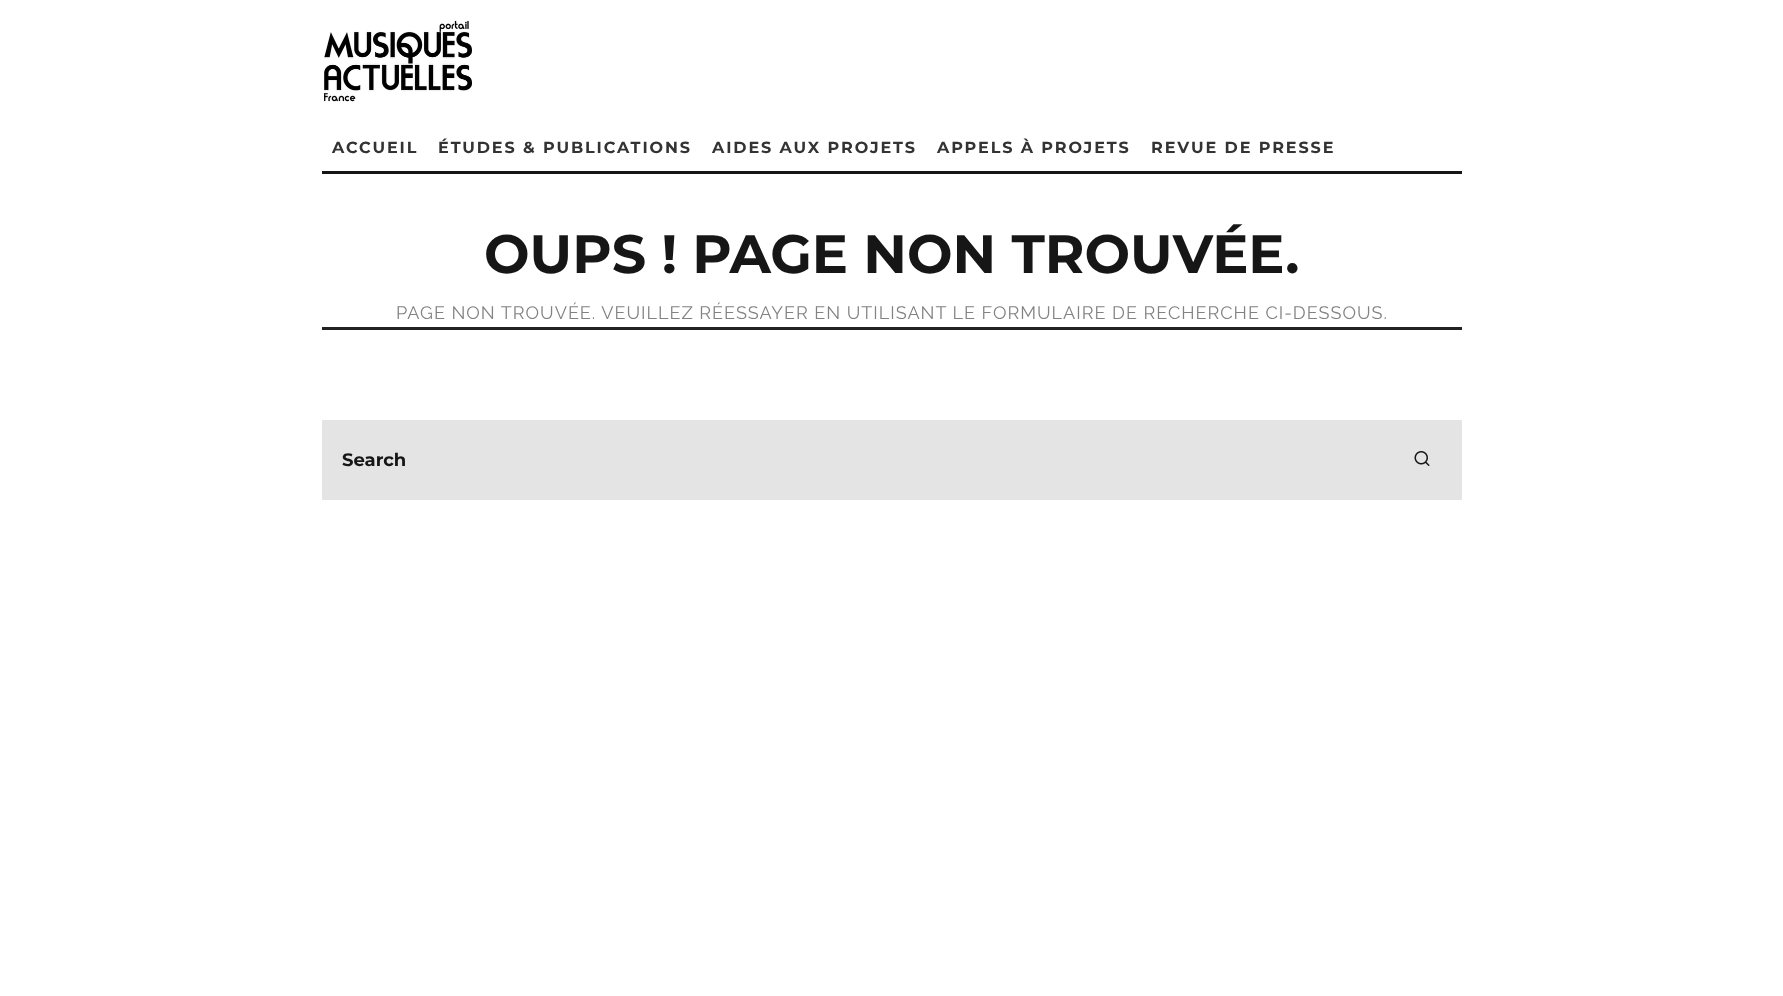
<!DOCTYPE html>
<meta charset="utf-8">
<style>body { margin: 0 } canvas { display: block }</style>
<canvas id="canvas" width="1783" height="996"></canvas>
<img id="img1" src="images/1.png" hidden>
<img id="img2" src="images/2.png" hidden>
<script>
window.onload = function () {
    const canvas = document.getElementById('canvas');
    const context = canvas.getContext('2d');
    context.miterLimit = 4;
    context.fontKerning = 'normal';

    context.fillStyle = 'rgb(255, 255, 255)';
    context.fillRect(0, 0, 1783, 996);
    context.drawImage(document.getElementById('img1'), 324, 20, 148, 82);
    context.fillStyle = 'rgb(22, 22, 22)';
    context.fillRect(322, 171, 1140, 3);
    context.fillStyle = 'rgb(34, 34, 34)';
    context.fillRect(322, 327, 1140, 3);
    context.fillStyle = 'rgb(228, 228, 228)';
    context.fillRect(322, 420, 1140, 80);
    context.drawImage(document.getElementById('img2'), 1414, 451, 16, 15);
    context.letterSpacing = '1.9px';
    context.font = 'bold 16px Montserrat';
    context.fillStyle = 'rgb(51, 51, 51)';
    context.fillText('ACCUEIL', 332, 153);
    context.fillText('ÉTUDES & PUBLICATIONS', 438, 153);
    context.fillText('AIDES AUX PROJETS', 712, 153);
    context.fillText('APPELS À PROJETS', 937, 153);
    context.fillText('REVUE DE PRESSE', 1151, 153);
    context.letterSpacing = '0px';
    context.font = 'bold 54px Montserrat';
    context.fillStyle = 'rgb(22, 22, 22)';
    context.fillText('OUPS ! PAGE NON TROUVÉE.', 484, 273);
    context.letterSpacing = '1px';
    context.font = '18px Raleway';
    context.fillStyle = 'rgb(130, 130, 130)';
    context.fillText('PAGE NON TROUVÉE. VEUILLEZ RÉESSAYER EN UTILISANT LE FORMULAIRE DE RECHERCHE CI-DESSOUS.', 396, 319);
    context.letterSpacing = '0px';
    context.font = 'bold 18px Montserrat';
    context.fillStyle = 'rgb(22, 22, 22)';
    context.fillText('Search', 342, 466);
};
</script>
